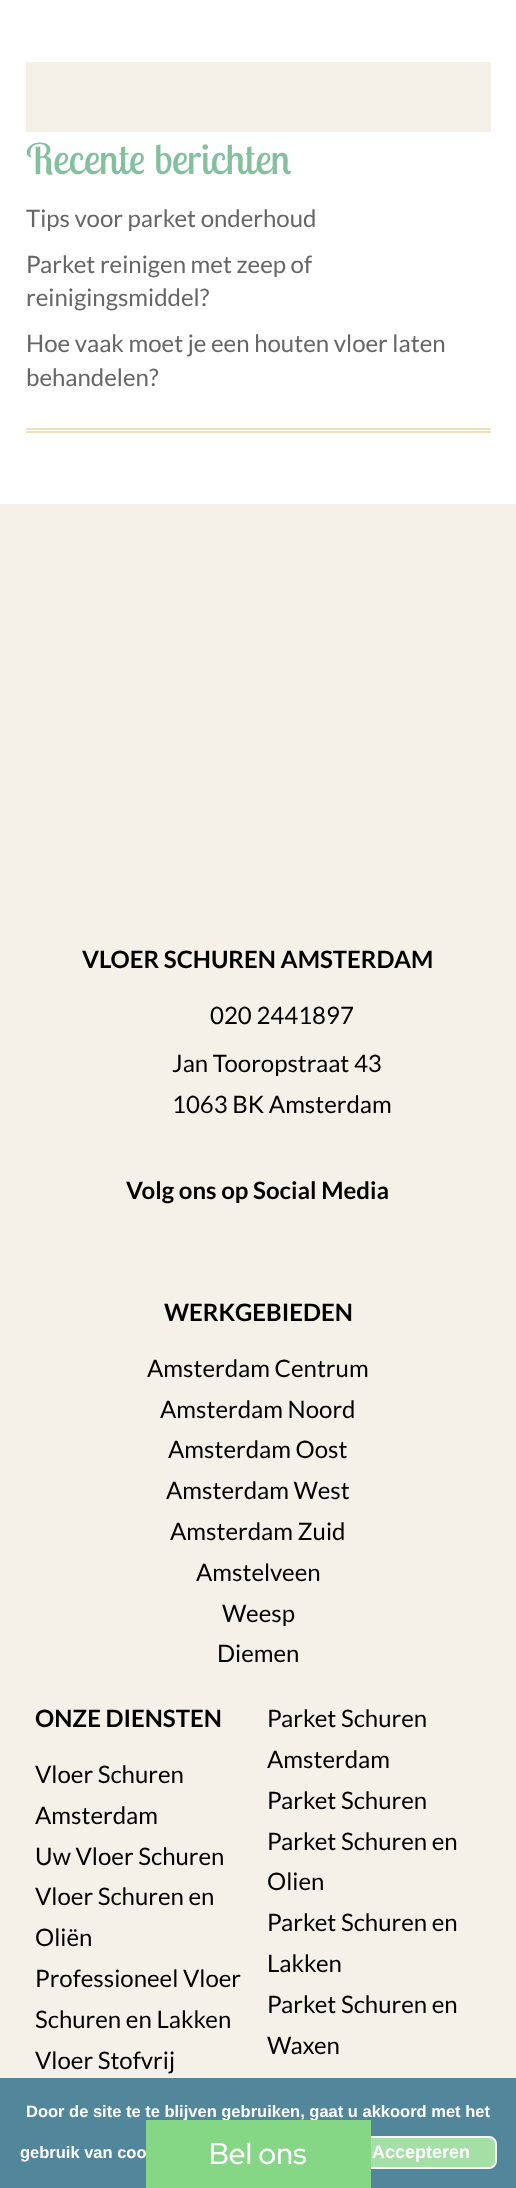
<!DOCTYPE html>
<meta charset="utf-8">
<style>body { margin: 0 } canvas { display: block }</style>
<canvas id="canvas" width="516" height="2188"></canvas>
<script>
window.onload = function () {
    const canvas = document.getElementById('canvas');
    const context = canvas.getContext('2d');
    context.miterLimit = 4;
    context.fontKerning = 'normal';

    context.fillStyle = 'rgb(255, 255, 255)';
    context.fillRect(0, 0, 516, 2188);
    context.fillStyle = 'rgb(245, 240, 232)';
    context.fillRect(26, 62, 465, 70);
    context.fillStyle = 'rgb(239, 223, 187)';
    context.fillRect(26, 428, 465, 2);
    context.fillRect(26, 431, 465, 2);
    context.fillStyle = 'rgb(245, 240, 232)';
    context.fillRect(0, 504, 516, 1574);
    context.fillStyle = 'rgb(81, 134, 155)';
    context.fillRect(0, 2078, 516, 110);
    context.fillStyle = 'rgb(164, 224, 165)';
    context.beginPath();
    context.roundRect(348, 2137, 148, 31, 7);
    context.fill();
    context.strokeStyle = 'rgb(246, 246, 246)';
    context.lineWidth = 2;
    context.stroke();
    context.font = '42px Lobster Two';
    context.fillStyle = 'rgb(132, 192, 158)';
    context.fillText('Recente berichten', 26, 174);
    context.font = '24px Lato';
    context.fillStyle = 'rgb(102, 102, 102)';
    context.fillText('Tips voor parket onderhoud', 26, 227);
    context.fillText('Parket reinigen met zeep of', 26, 273);
    context.fillText('reinigingsmiddel?', 26, 306);
    context.fillText('Hoe vaak moet je een houten vloer laten', 26, 352);
    context.fillText('behandelen?', 26, 386);
    context.font = 'bold 24px Lato';
    context.fillStyle = 'rgb(0, 0, 0)';
    context.fillText('VLOER SCHUREN AMSTERDAM', 82, 968);
    context.font = '24px Lato';
    context.fillText('020 2441897', 210, 1024);
    context.fillText('Jan Tooropstraat 43', 172, 1072);
    context.fillText('1063 BK Amsterdam', 172, 1113);
    context.font = 'bold 24px Lato';
    context.fillText('Volg ons op Social Media', 126, 1199);
    context.fillText('WERKGEBIEDEN', 164, 1321);
    context.font = '24px Lato';
    context.fillText('Amsterdam Centrum', 147, 1377);
    context.fillText('Amsterdam Noord', 160, 1418);
    context.fillText('Amsterdam Oost', 168, 1458);
    context.fillText('Amsterdam West', 166, 1499);
    context.fillText('Amsterdam Zuid', 170, 1540);
    context.fillText('Amstelveen', 196, 1581);
    context.fillText('Weesp', 222, 1622);
    context.fillText('Diemen', 217, 1662);
    context.font = 'bold 24px Lato';
    context.fillText('ONZE DIENSTEN', 35, 1727);
    context.font = '24px Lato';
    context.fillText('Vloer Schuren', 35, 1783);
    context.fillText('Amsterdam', 35, 1824);
    context.fillText('Uw Vloer Schuren', 35, 1865);
    context.fillText('Vloer Schuren en', 35, 1905);
    context.fillText('Oliën', 35, 1946);
    context.fillText('Professioneel Vloer', 35, 1987);
    context.fillText('Schuren en Lakken', 35, 2028);
    context.fillText('Vloer Stofvrij', 35, 2069);
    context.fillText('Parket Schuren', 267, 1727);
    context.fillText('Amsterdam', 267, 1768);
    context.fillText('Parket Schuren', 267, 1809);
    context.fillText('Parket Schuren en', 267, 1850);
    context.fillText('Olien', 267, 1890);
    context.fillText('Parket Schuren en', 267, 1931);
    context.fillText('Lakken', 267, 1972);
    context.fillText('Parket Schuren en', 267, 2013);
    context.fillText('Waxen', 267, 2054);
    context.font = 'bold 16.5px Liberation Sans';
    context.fillStyle = 'rgb(255, 255, 255)';
    context.fillText('Door de site te te blijven gebruiken, gaat u akkoord met het', 26, 2117);
    context.fillText('gebruik van coo', 20, 2158);
    context.font = 'bold 18px Liberation Sans';
    context.fillText('Accepteren', 372, 2158);
    context.fillStyle = 'rgb(133, 215, 133)';
    context.fillRect(146, 2120, 225, 68);
    context.font = '500 30px Red Hat Display';
    context.fillStyle = 'rgb(255, 255, 255)';
    context.fillText('Bel ons', 209, 2164);
};
</script>
